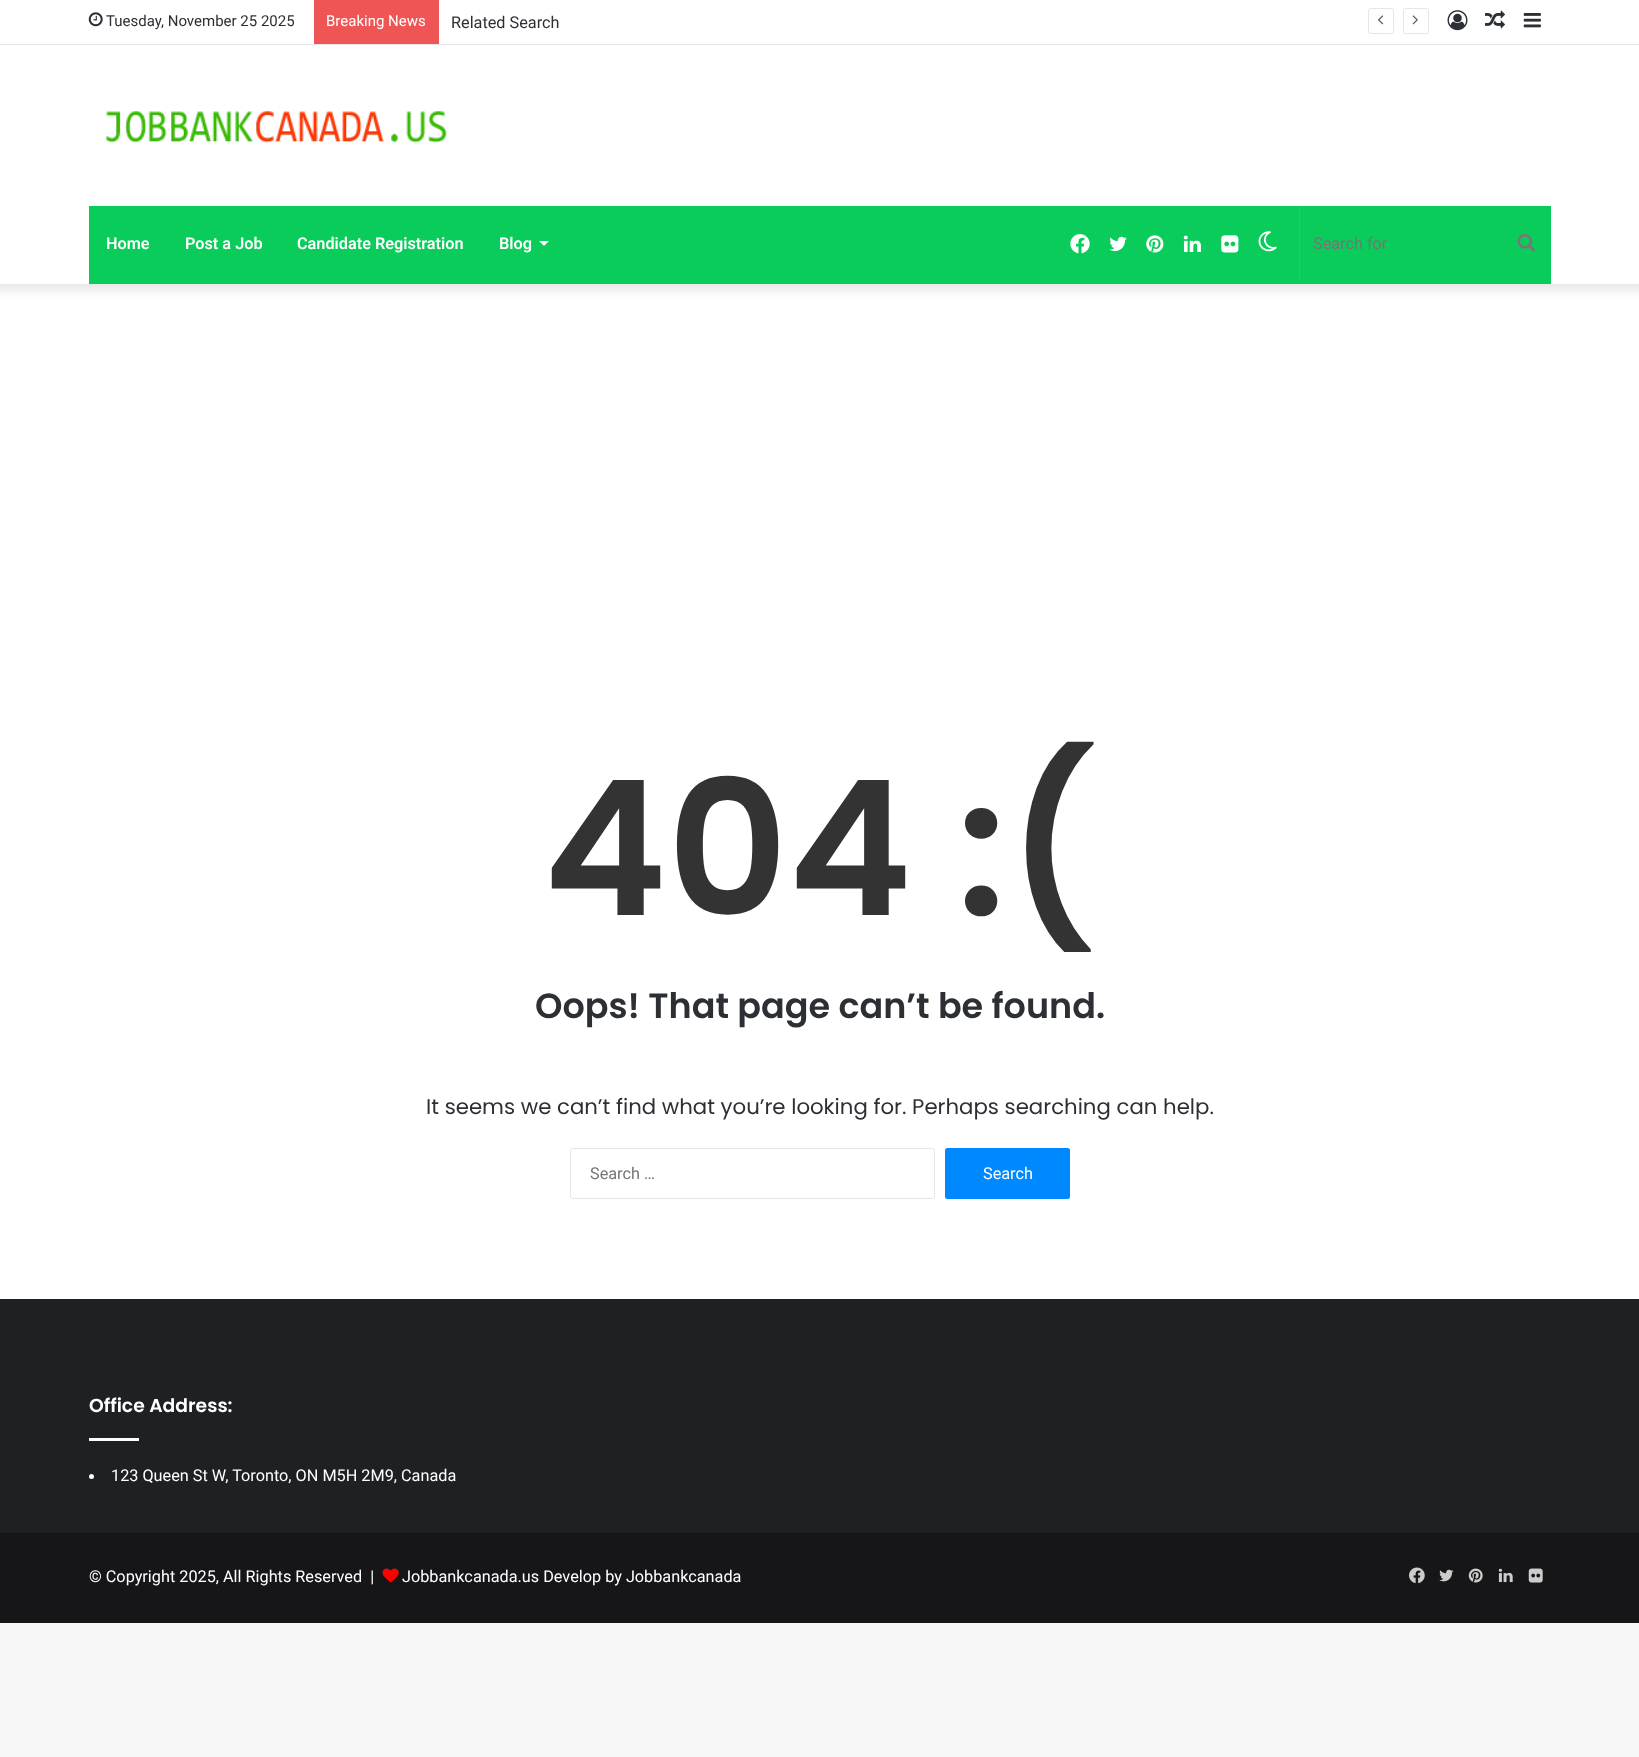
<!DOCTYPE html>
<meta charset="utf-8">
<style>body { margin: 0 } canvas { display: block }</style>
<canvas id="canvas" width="1639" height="1757"></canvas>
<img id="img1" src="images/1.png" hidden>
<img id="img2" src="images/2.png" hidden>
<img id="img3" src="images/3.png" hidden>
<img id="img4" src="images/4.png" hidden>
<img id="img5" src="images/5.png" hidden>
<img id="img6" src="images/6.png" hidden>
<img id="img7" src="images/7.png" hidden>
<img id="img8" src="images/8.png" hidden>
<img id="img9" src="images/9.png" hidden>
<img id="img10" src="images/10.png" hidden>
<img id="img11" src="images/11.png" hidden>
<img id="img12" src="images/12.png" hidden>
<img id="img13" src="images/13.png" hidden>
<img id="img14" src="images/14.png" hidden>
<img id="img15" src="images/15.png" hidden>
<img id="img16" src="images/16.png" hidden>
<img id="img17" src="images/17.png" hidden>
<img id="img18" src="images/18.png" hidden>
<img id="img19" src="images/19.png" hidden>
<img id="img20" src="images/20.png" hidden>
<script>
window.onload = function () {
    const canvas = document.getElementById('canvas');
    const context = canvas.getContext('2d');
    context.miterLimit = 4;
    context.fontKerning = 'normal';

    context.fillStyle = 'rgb(247, 247, 247)';
    context.fillRect(0, 0, 1639, 1757);
    context.fillStyle = 'rgb(255, 255, 255)';
    context.fillRect(0, 284, 1639, 1015);
    context.fillStyle = 'rgba(0, 0, 0, 0.1)';
    context.filter = 'blur(6px)';
    context.beginPath();
    context.rect(-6, -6, 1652, 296);
    context.fill();
    context.filter = 'none';
    context.fillStyle = 'rgb(255, 255, 255)';
    context.fillRect(0, 0, 1639, 284);
    context.fillStyle = 'rgb(230, 230, 230)';
    context.fillRect(0, 44, 1639, 1);
    context.drawImage(document.getElementById('img1'), 88, 12, 15, 15);
    context.fillStyle = 'rgb(240, 85, 85)';
    context.fillRect(314, 0, 125, 44);
    context.beginPath();
    context.roundRect(1368.5, 8.5, 25, 25, 2);
    context.strokeStyle = 'rgb(230, 230, 230)';
    context.stroke();
    context.drawImage(document.getElementById('img2'), 1378, 15, 6, 10);
    context.beginPath();
    context.roundRect(1403.5, 8.5, 25, 25, 2);
    context.stroke();
    context.drawImage(document.getElementById('img3'), 1412, 15, 6, 10);
    context.drawImage(document.getElementById('img4'), 1447, 10, 21, 21);
    context.drawImage(document.getElementById('img5'), 1485, 10, 20, 19);
    context.drawImage(document.getElementById('img6'), 1523, 13, 18, 15);
    context.drawImage(document.getElementById('img7'), 106, 111, 341, 32);
    context.fillStyle = 'rgb(10, 204, 90)';
    context.fillRect(89, 206, 1462, 78);
    context.fillStyle = 'rgb(255, 255, 255)';
    context.beginPath();
    context.moveTo(539, 241);
    context.lineTo(549, 241);
    context.lineTo(544, 246);
    context.closePath();
    context.fill();
    context.drawImage(document.getElementById('img8'), 1070, 234, 20, 20);
    context.drawImage(document.getElementById('img9'), 1109, 236, 18, 16);
    context.drawImage(document.getElementById('img10'), 1146, 235, 18, 18);
    context.drawImage(document.getElementById('img11'), 1183, 235, 18, 17);
    context.drawImage(document.getElementById('img12'), 1221, 235, 18, 18);
    context.drawImage(document.getElementById('img13'), 1258, 231, 19, 21);
    context.fillStyle = 'rgb(27, 208, 102)';
    context.fillRect(1299, 206, 1, 75);
    context.drawImage(document.getElementById('img14'), 1517, 233, 18, 19);
    context.beginPath();
    context.roundRect(570.5, 1148.5, 364, 50, 2);
    context.stroke();
    context.fillStyle = 'rgb(0, 136, 255)';
    context.beginPath();
    context.roundRect(945, 1148, 125, 51, 2.5);
    context.fill();
    context.fillStyle = 'rgb(31, 32, 36)';
    context.fillRect(0, 1299, 1639, 234);
    context.fillStyle = 'rgb(253, 253, 253)';
    context.fillRect(89, 1438, 50, 3);
    context.beginPath();
    context.arc(91.5, 1476.5, 2.5, 0, 2 * Math.PI);
    context.fill();
    context.fillStyle = 'rgb(22, 22, 25)';
    context.fillRect(0, 1533, 1639, 90);
    context.drawImage(document.getElementById('img15'), 382, 1568, 17, 15);
    context.drawImage(document.getElementById('img16'), 1409, 1567, 16, 17);
    context.drawImage(document.getElementById('img17'), 1439, 1569, 15, 13);
    context.drawImage(document.getElementById('img18'), 1468, 1568, 15, 15);
    context.drawImage(document.getElementById('img19'), 1498, 1568, 15, 15);
    context.drawImage(document.getElementById('img20'), 1528, 1568, 15, 15);
    context.font = '15px Roboto';
    context.fillStyle = 'rgb(44, 47, 52)';
    context.fillText('Tuesday, November 25 2025', 106, 26);
    context.fillStyle = 'rgb(255, 255, 255)';
    context.fillText('Breaking News', 326, 26);
    context.font = '16.25px Roboto';
    context.fillStyle = 'rgb(44, 47, 52)';
    context.fillText('Related Search', 451, 28);
    context.font = '600 16.25px Roboto';
    context.fillStyle = 'rgb(255, 255, 255)';
    context.fillText('Home', 106, 249);
    context.fillText('Post a Job', 185, 249);
    context.fillText('Candidate Registration', 297, 249);
    context.fillText('Blog', 499, 249);
    context.font = '16.25px Roboto';
    context.fillStyle = 'rgb(117, 117, 117)';
    context.fillText('Search for', 1313, 249);
    context.font = '600 187.5px Poppins';
    context.fillStyle = 'rgb(51, 51, 51)';
    context.fillText('404 :(', 543, 915);
    context.font = '600 35px Poppins';
    context.fillStyle = 'rgb(44, 47, 52)';
    context.fillText('Oops! That page can’t be found.', 535, 1018);
    context.font = '21.25px Poppins';
    context.fillText('It seems we can’t find what you’re looking for. Perhaps searching can help.', 426, 1114);
    context.font = '16.25px Roboto';
    context.fillStyle = 'rgb(117, 117, 117)';
    context.fillText('Search …', 590, 1179);
    context.fillStyle = 'rgb(255, 255, 255)';
    context.fillText('Search', 983, 1179);
    context.font = '600 18.75px Poppins';
    context.fillText('Office Address:', 89, 1412);
    context.font = '16.25px Roboto';
    context.fillText('123 Queen St W, Toronto, ON M5H 2M9, Canada', 111, 1481);
    context.fillText('© Copyright 2025, All Rights Reserved  |', 89, 1582);
    context.fillText('Jobbankcanada.us Develop by Jobbankcanada', 402, 1582);
};
</script>
